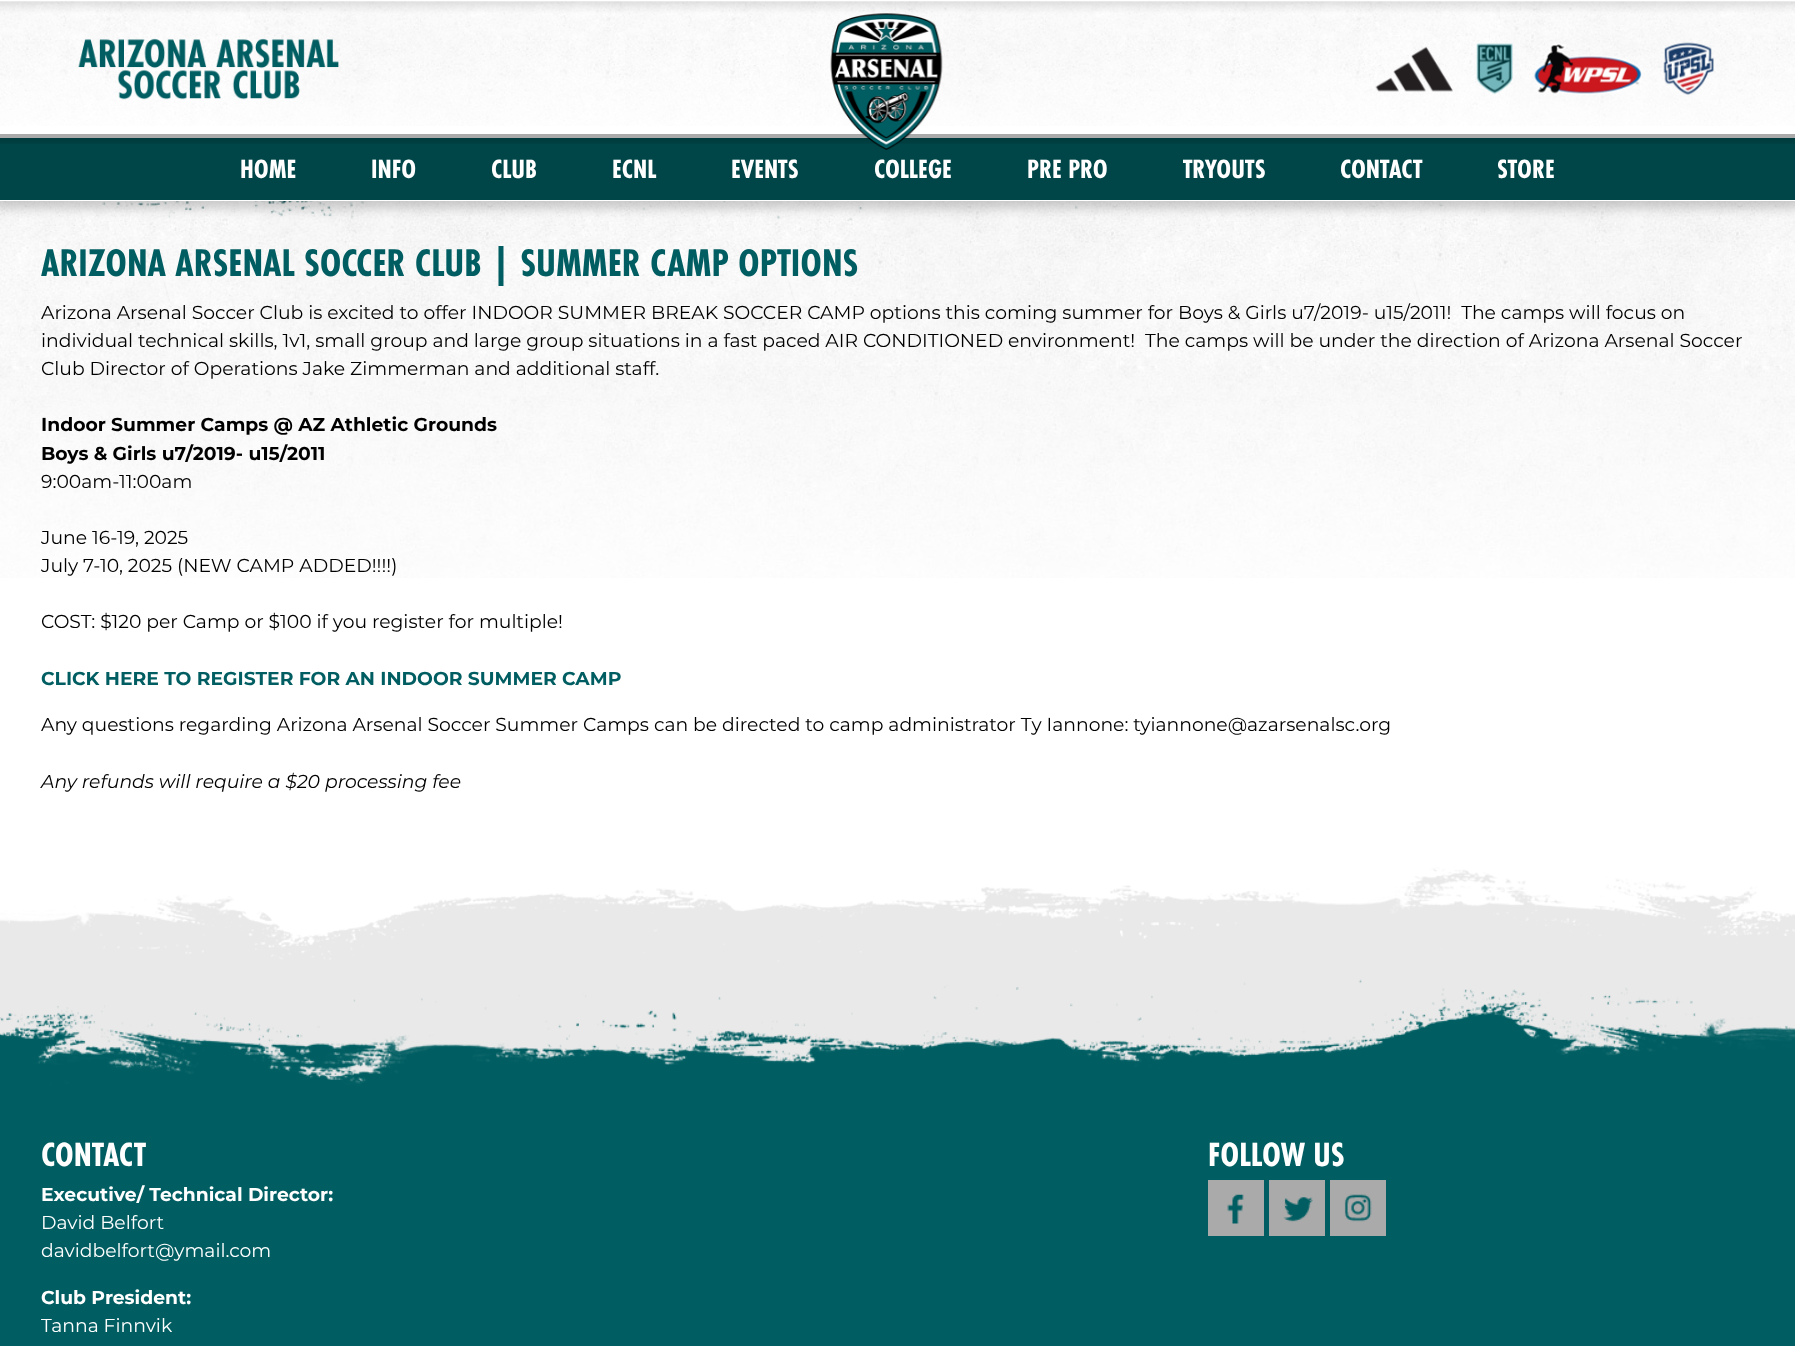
<!DOCTYPE html>
<meta charset="utf-8">
<style>body { margin: 0 } canvas { display: block }</style>
<canvas id="canvas" width="1795" height="1346"></canvas>
<img id="img1" src="images/10.png" hidden>
<img id="img2" src="images/9.png" hidden>
<img id="img3" src="images/1.png" hidden>
<img id="img4" src="images/2.png" hidden>
<img id="img5" src="images/8.png" hidden>
<img id="img6" src="images/3.png" hidden>
<img id="img7" src="images/4.png" hidden>
<img id="img8" src="images/5.png" hidden>
<img id="img9" src="images/6.png" hidden>
<img id="img10" src="images/7.png" hidden>
<img id="img11" src="images/11.png" hidden>
<img id="img12" src="images/12.png" hidden>
<img id="img13" src="images/13.png" hidden>
<img id="img14" src="images/14.png" hidden>
<img id="img15" src="images/15.png" hidden>
<script>
window.onload = function () {
    const canvas = document.getElementById('canvas');
    const context = canvas.getContext('2d');
    context.miterLimit = 4;
    context.fontKerning = 'normal';

    context.fillStyle = 'rgb(0, 94, 98)';
    context.fillRect(0, 0, 1795, 1346);
    context.drawImage(document.getElementById('img1'), 0, 201, 1795, 377);
    context.drawImage(document.getElementById('img2'), 102, 201, 1341, 21);
    context.fillStyle = 'rgba(0, 0, 0, 0.2)';
    context.filter = 'blur(6px)';
    context.beginPath();
    context.rect(-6, -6, 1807, 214);
    context.fill();
    context.filter = 'none';
    context.fillStyle = 'rgb(255, 255, 255)';
    context.fillRect(0, 200, 1795, 1);
    context.fillRect(0, 0, 1795, 134);
    context.drawImage(document.getElementById('img3'), 0, 1, 1795, 125);
    context.fillStyle = 'rgb(170, 170, 170)';
    context.fillRect(0, 134, 1795, 4);
    context.drawImage(document.getElementById('img4'), 78, 38, 261, 62);
    context.fillStyle = 'rgb(0, 70, 72)';
    context.fillRect(0, 138, 1795, 62);
    context.drawImage(document.getElementById('img5'), 0, 138, 1795, 6);
    context.drawImage(document.getElementById('img6'), 830, 13, 113, 137);
    context.drawImage(document.getElementById('img7'), 1375, 46, 78, 46);
    context.drawImage(document.getElementById('img8'), 1476, 43, 37, 52);
    context.drawImage(document.getElementById('img9'), 1534, 43, 108, 52);
    context.drawImage(document.getElementById('img10'), 1663, 42, 51, 53);
    context.fillStyle = 'rgb(255, 255, 255)';
    context.fillRect(0, 578, 1795, 282);
    context.fillStyle = 'rgb(233, 233, 233)';
    context.fillRect(0, 862, 1795, 224);
    context.drawImage(document.getElementById('img11'), 0, 860, 1795, 102);
    context.drawImage(document.getElementById('img12'), 0, 979, 1795, 107);
    context.fillStyle = 'rgb(170, 170, 170)';
    context.fillRect(1208, 1180, 56, 56);
    context.fillRect(1269, 1180, 56, 56);
    context.fillRect(1330, 1180, 56, 56);
    context.drawImage(document.getElementById('img13'), 1227, 1194, 17, 30);
    context.drawImage(document.getElementById('img14'), 1283, 1197, 30, 25);
    context.drawImage(document.getElementById('img15'), 1344, 1194, 28, 28);
    context.font = 'bold 27.5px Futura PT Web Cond';
    context.fillStyle = 'rgb(255, 255, 255)';
    context.fillText('HOME', 240, 178);
    context.fillText('INFO', 371, 178);
    context.fillText('CLUB', 491, 178);
    context.fillText('ECNL', 612, 178);
    context.fillText('EVENTS', 731, 178);
    context.fillText('COLLEGE', 874, 178);
    context.fillText('PRE PRO', 1027, 178);
    context.fillText('TRYOUTS', 1183, 178);
    context.fillText('CONTACT', 1340, 178);
    context.fillText('STORE', 1497, 178);
    context.font = 'bold 40px Futura PT Web Cond';
    context.fillStyle = 'rgb(0, 94, 98)';
    context.fillText('ARIZONA ARSENAL SOCCER CLUB | SUMMER CAMP OPTIONS', 41, 276);
    context.font = '18.75px Montserrat';
    context.fillStyle = 'rgb(0, 0, 0)';
    context.fillText('Arizona Arsenal Soccer Club is excited to offer INDOOR SUMMER BREAK SOCCER CAMP options this coming summer for Boys & Girls u7/2019- u15/2011!  The camps will focus on', 41, 319);
    context.fillText('individual technical skills, 1v1, small group and large group situations in a fast paced AIR CONDITIONED environment!  The camps will be under the direction of Arizona Arsenal Soccer', 41, 347);
    context.fillText('Club Director of Operations Jake Zimmerman and additional staff.', 41, 375);
    context.font = 'bold 18.75px Montserrat';
    context.fillText('Indoor Summer Camps @ AZ Athletic Grounds', 41, 431);
    context.fillText('Boys & Girls u7/2019- u15/2011', 41, 460);
    context.font = '18.75px Montserrat';
    context.fillText('9:00am-11:00am', 41, 488);
    context.fillText('June 16-19, 2025', 41, 544);
    context.fillText('July 7-10, 2025 (NEW CAMP ADDED!!!!)', 41, 572);
    context.fillText('COST: $120 per Camp or $100 if you register for multiple!', 41, 628);
    context.font = 'bold 18.75px Montserrat';
    context.fillStyle = 'rgb(0, 94, 98)';
    context.fillText('CLICK HERE TO REGISTER FOR AN INDOOR SUMMER CAMP', 41, 685);
    context.font = '18.75px Montserrat';
    context.fillStyle = 'rgb(0, 0, 0)';
    context.fillText('Any questions regarding Arizona Arsenal Soccer Summer Camps can be directed to camp administrator Ty Iannone: tyiannone@azarsenalsc.org', 41, 731);
    context.font = 'italic 18.75px Montserrat';
    context.fillText('Any refunds will require a $20 processing fee', 41, 788);
    context.font = 'bold 35px Futura PT Web Cond';
    context.fillStyle = 'rgb(255, 255, 255)';
    context.fillText('CONTACT', 41, 1166);
    context.font = 'bold 18.75px Montserrat';
    context.fillText('Executive/ Technical Director:', 41, 1201);
    context.font = '18.75px Montserrat';
    context.fillText('David Belfort', 41, 1229);
    context.fillText('davidbelfort@ymail.com', 41, 1257);
    context.font = 'bold 18.75px Montserrat';
    context.fillText('Club President:', 41, 1304);
    context.font = '18.75px Montserrat';
    context.fillText('Tanna Finnvik', 41, 1332);
    context.font = 'bold 35px Futura PT Web Cond';
    context.fillText('FOLLOW US', 1208, 1166);
};
</script>
